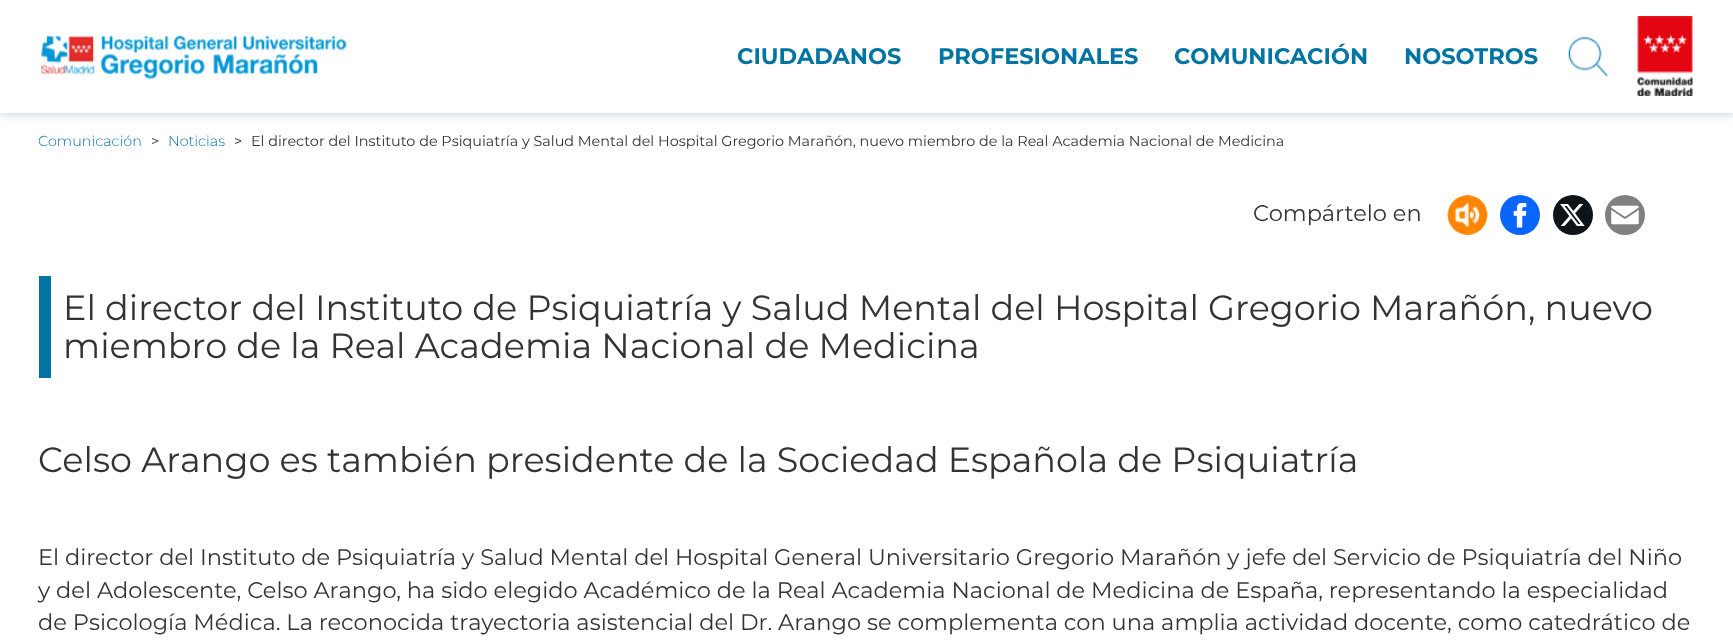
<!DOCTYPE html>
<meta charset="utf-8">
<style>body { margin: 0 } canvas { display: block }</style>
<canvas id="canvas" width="1733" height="644"></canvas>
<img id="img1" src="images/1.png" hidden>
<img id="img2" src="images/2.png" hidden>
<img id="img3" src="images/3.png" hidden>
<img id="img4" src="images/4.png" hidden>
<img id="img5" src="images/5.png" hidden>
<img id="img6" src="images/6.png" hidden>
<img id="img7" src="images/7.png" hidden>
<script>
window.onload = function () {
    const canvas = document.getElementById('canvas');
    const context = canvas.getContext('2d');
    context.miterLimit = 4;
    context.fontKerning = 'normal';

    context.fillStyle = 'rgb(255, 255, 255)';
    context.fillRect(0, 0, 1733, 644);
    context.fillStyle = 'rgb(179, 201, 210)';
    context.filter = 'blur(5.5px)';
    context.beginPath();
    context.rect(0, 0, 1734, 113);
    context.fill();
    context.filter = 'none';
    context.fillStyle = 'rgb(255, 255, 255)';
    context.fillRect(0, 0, 1733, 113);
    context.drawImage(document.getElementById('img1'), 41, 34, 306, 46);
    context.drawImage(document.getElementById('img2'), 1568, 37, 40, 40);
    context.drawImage(document.getElementById('img3'), 1637, 16, 56, 80);
    context.drawImage(document.getElementById('img4'), 1447, 195, 41, 40);
    context.fillStyle = 'rgb(8, 102, 255)';
    context.beginPath();
    context.arc(1520, 215, 20, 0, 2 * Math.PI);
    context.fill();
    context.drawImage(document.getElementById('img5'), 1513, 203, 14, 25);
    context.fillStyle = 'rgb(15, 20, 25)';
    context.beginPath();
    context.arc(1573, 215, 20, 0, 2 * Math.PI);
    context.fill();
    context.drawImage(document.getElementById('img6'), 1560, 204, 25, 22);
    context.fillStyle = 'rgb(128, 128, 128)';
    context.beginPath();
    context.arc(1625, 215, 20, 0, 2 * Math.PI);
    context.fill();
    context.drawImage(document.getElementById('img7'), 1611, 205, 28, 20);
    context.fillStyle = 'rgb(0, 116, 163)';
    context.fillRect(39, 276, 12, 102);
    context.font = 'bold 22.5px Montserrat';
    context.fillText('CIUDADANOS', 737, 64);
    context.fillText('PROFESIONALES', 938, 64);
    context.fillText('COMUNICACIÓN', 1174, 64);
    context.fillText('NOSOTROS', 1404, 64);
    context.font = '300 14.38px Montserrat';
    context.fillText('Comunicación', 38, 146);
    context.font = '14.38px Montserrat';
    context.fillStyle = 'rgb(51, 51, 51)';
    context.fillText('>', 151, 146);
    context.font = '300 14.38px Montserrat';
    context.fillStyle = 'rgb(0, 116, 163)';
    context.fillText('Noticias', 168, 146);
    context.font = '14.38px Montserrat';
    context.fillStyle = 'rgb(51, 51, 51)';
    context.fillText('>', 234, 146);
    context.fillText('El director del Instituto de Psiquiatría y Salud Mental del Hospital Gregorio Marañón, nuevo miembro de la Real Academia Nacional de Medicina', 251, 146);
    context.font = '22.5px Montserrat';
    context.fillText('Compártelo en', 1253, 221);
    context.font = '35px Montserrat';
    context.fillText('El director del Instituto de Psiquiatría y Salud Mental del Hospital Gregorio Marañón, nuevo', 63, 320);
    context.fillText('miembro de la Real Academia Nacional de Medicina', 63, 358);
    context.fillText('Celso Arango es también presidente de la Sociedad Española de Psiquiatría', 38, 472);
    context.font = '22.5px Montserrat';
    context.fillText('El director del Instituto de Psiquiatría y Salud Mental del Hospital General Universitario Gregorio Marañón y jefe del Servicio de Psiquiatría del Niño', 38, 565);
    context.fillText('y del Adolescente, Celso Arango, ha sido elegido Académico de la Real Academia Nacional de Medicina de España, representando la especialidad', 38, 598);
    context.fillText('de Psicología Médica. La reconocida trayectoria asistencial del Dr. Arango se complementa con una amplia actividad docente, como catedrático de', 38, 630);
};
</script>
